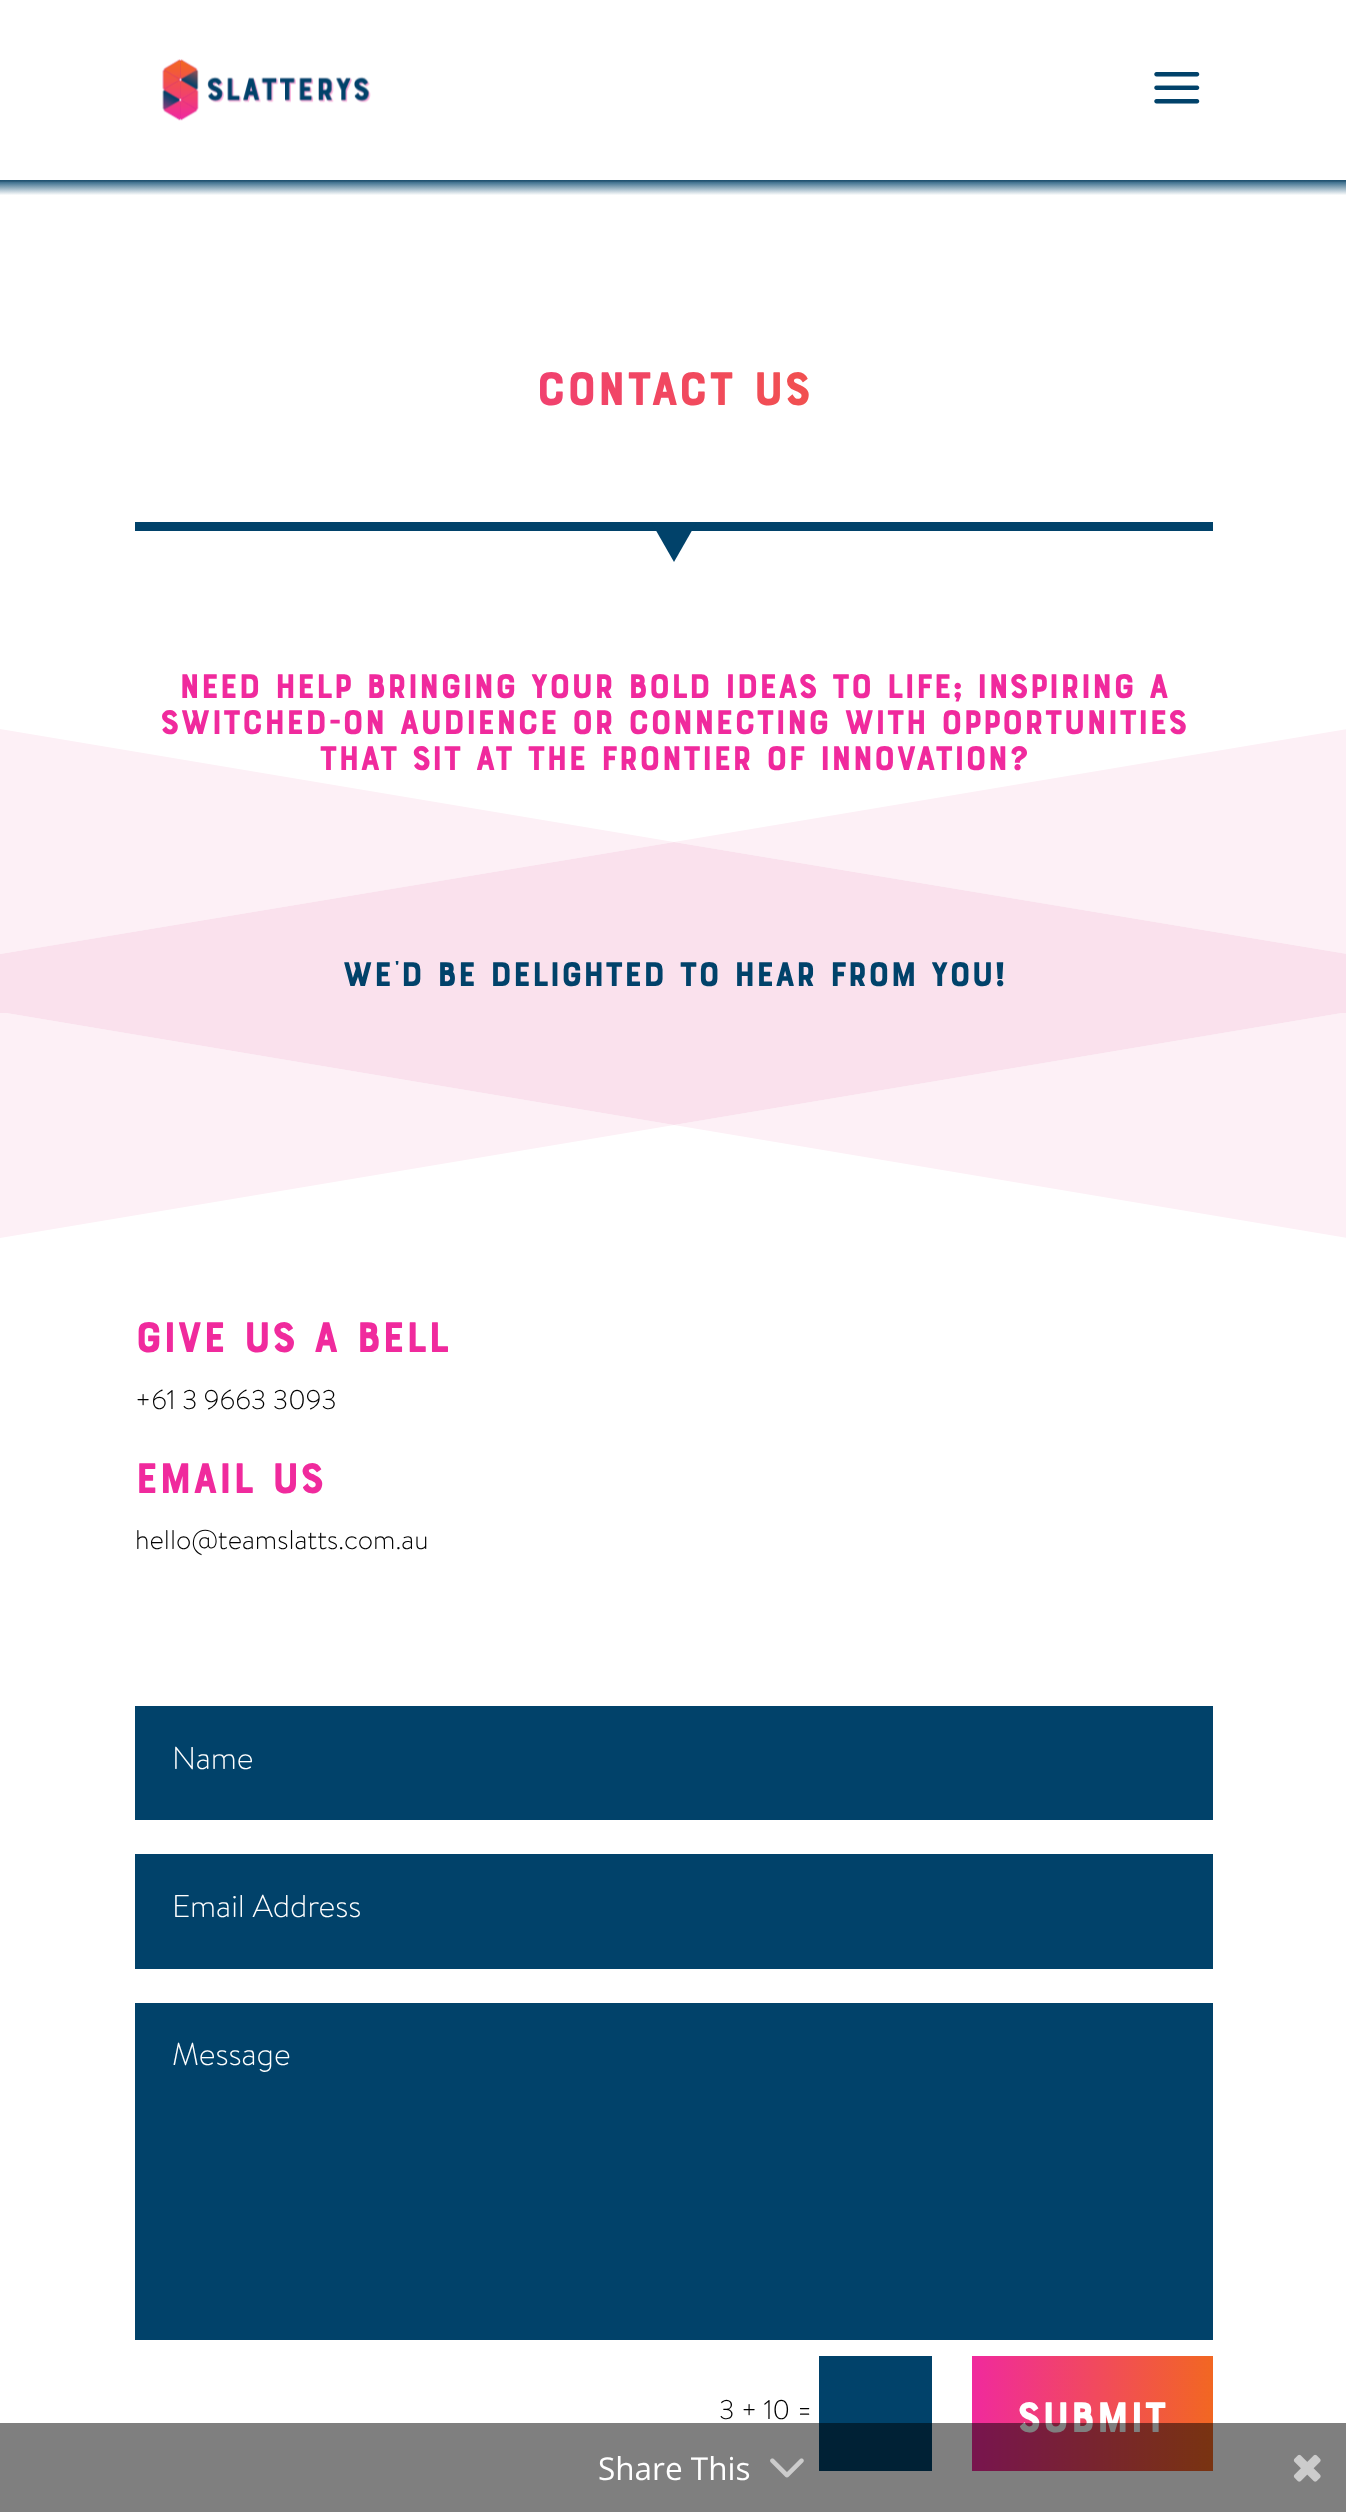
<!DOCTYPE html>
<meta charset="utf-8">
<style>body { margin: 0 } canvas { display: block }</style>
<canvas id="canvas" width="1346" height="2512"></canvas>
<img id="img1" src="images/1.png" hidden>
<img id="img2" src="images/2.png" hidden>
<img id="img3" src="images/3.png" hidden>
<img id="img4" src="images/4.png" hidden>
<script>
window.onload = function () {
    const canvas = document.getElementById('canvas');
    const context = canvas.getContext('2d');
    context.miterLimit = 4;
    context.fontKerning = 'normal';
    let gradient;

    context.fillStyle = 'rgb(255, 255, 255)';
    context.fillRect(0, 0, 1346, 2512);
    gradient = context.createLinearGradient(674, 178, 674, 522);
    gradient.addColorStop(0, 'rgb(1, 66, 106)');
    gradient.addColorStop(0.05, 'rgb(255, 255, 255)');
    context.fillStyle = gradient;
    context.fillRect(0, 180, 1346, 15);
    context.fillStyle = 'rgba(0, 0, 0, 0.1)';
    context.beginPath();
    context.moveTo(0, 180);
    context.lineTo(0, 182);
    context.lineTo(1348, 182);
    context.lineTo(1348, 2);
    context.lineTo(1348, 180);
    context.closePath();
    context.fill();
    context.drawImage(document.getElementById('img1'), 162, 59, 209, 62);
    context.drawImage(document.getElementById('img2'), 1154, 72, 46, 32);
    context.fillStyle = 'rgb(1, 66, 106)';
    context.fillRect(135, 522, 1078, 9);
    context.save();
    context.beginPath();
    context.rect(0, 522, 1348, 41);
    context.clip();
    context.beginPath();
    context.moveTo(674, 562);
    context.lineTo(0, -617);
    context.lineTo(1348, -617);
    context.closePath();
    context.fill();
    context.restore();
    context.fillStyle = 'rgb(253, 240, 246)';
    context.beginPath();
    context.moveTo(0, 954);
    context.lineTo(674, 842);
    context.lineTo(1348, 954);
    context.lineTo(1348, 729);
    context.lineTo(674, 842);
    context.lineTo(0, 729);
    context.closePath();
    context.fill();
    context.fillStyle = 'rgb(250, 225, 237)';
    context.beginPath();
    context.moveTo(0, 954);
    context.lineTo(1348, 954);
    context.lineTo(674, 842);
    context.closePath();
    context.fill();
    context.fillRect(0, 954, 1346, 59);
    context.save();
    context.beginPath();
    context.rect(0, 1013, 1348, 225);
    context.clip();
    context.fillStyle = 'rgb(253, 240, 246)';
    context.beginPath();
    context.moveTo(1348, 1012);
    context.lineTo(674, 1125);
    context.lineTo(0, 1012);
    context.lineTo(0, 1238);
    context.lineTo(674, 1125);
    context.lineTo(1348, 1238);
    context.closePath();
    context.fill();
    context.fillStyle = 'rgb(250, 225, 237)';
    context.beginPath();
    context.moveTo(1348, 1012);
    context.lineTo(0, 1012);
    context.lineTo(674, 1125);
    context.closePath();
    context.fill();
    context.restore();
    context.fillStyle = 'rgb(1, 66, 106)';
    context.fillRect(135, 1706, 1078, 114);
    context.fillRect(135, 1854, 1078, 115);
    context.fillRect(135, 2003, 1078, 337);
    context.fillRect(819, 2356, 113, 115);
    gradient = context.createLinearGradient(972, 2413, 1213, 2413);
    gradient.addColorStop(0, 'rgb(240, 42, 157)');
    gradient.addColorStop(1, 'rgb(242, 103, 34)');
    context.fillStyle = gradient;
    context.fillRect(972, 2356, 241, 115);
    context.font = '49.5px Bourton';
    gradient = context.createLinearGradient(135, 396, 1213, 396);
    gradient.addColorStop(0, 'rgb(240, 42, 157)');
    gradient.addColorStop(1, 'rgb(242, 103, 34)');
    context.fillStyle = gradient;
    context.fillText('CONTACT US', 536, 405);
    context.font = '36px Bourton';
    context.fillStyle = 'rgb(240, 42, 157)';
    context.fillText('Need help bringing your bold ideas to life; inspiring a', 179, 698);
    context.fillText('switched-on audience or connecting with opportunities', 160, 734);
    context.fillText('that sit at the frontier of innovation?', 319, 770);
    context.fillStyle = 'rgb(1, 66, 106)';
    context.fillText('We’d be delighted to hear from you!', 342, 986);
    context.font = '45px Bourton';
    context.fillStyle = 'rgb(240, 42, 157)';
    context.fillText('Give us a bell', 135, 1352);
    context.font = '27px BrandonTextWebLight';
    context.fillStyle = 'rgb(0, 0, 0)';
    context.fillText('+61 3 9663 3093', 135, 1409);
    context.font = '45px Bourton';
    context.fillStyle = 'rgb(240, 42, 157)';
    context.fillText('Email us', 135, 1493);
    context.font = '27px BrandonTextWebLight';
    context.fillStyle = 'rgb(0, 0, 0)';
    context.fillText('hello@teamslatts.com.au', 135, 1549);
    context.font = '31.5px BrandonTextWebLight';
    context.fillStyle = 'rgb(255, 255, 255)';
    context.fillText('Name', 172, 1769);
    context.fillText('Email Address', 172, 1917);
    context.fillText('Message', 172, 2065);
    context.font = '27px BrandonTextWebLight';
    context.fillStyle = 'rgb(0, 0, 0)';
    context.fillText('3 + 10 =', 719, 2419);
    context.font = '45px Bourton';
    context.fillStyle = 'rgb(255, 255, 255)';
    context.fillText('SUBMIT', 1017, 2432);
    context.fillStyle = 'rgba(0, 0, 0, 0.5)';
    context.fillRect(0, 2423, 1346, 89);
    context.font = '31.5px Open Sans';
    context.fillStyle = 'rgb(255, 255, 255)';
    context.fillText('Share This', 598, 2480);
    context.drawImage(document.getElementById('img3'), 770, 2458, 34, 20);
    context.drawImage(document.getElementById('img4'), 1293, 2454, 28, 28);
};
</script>
